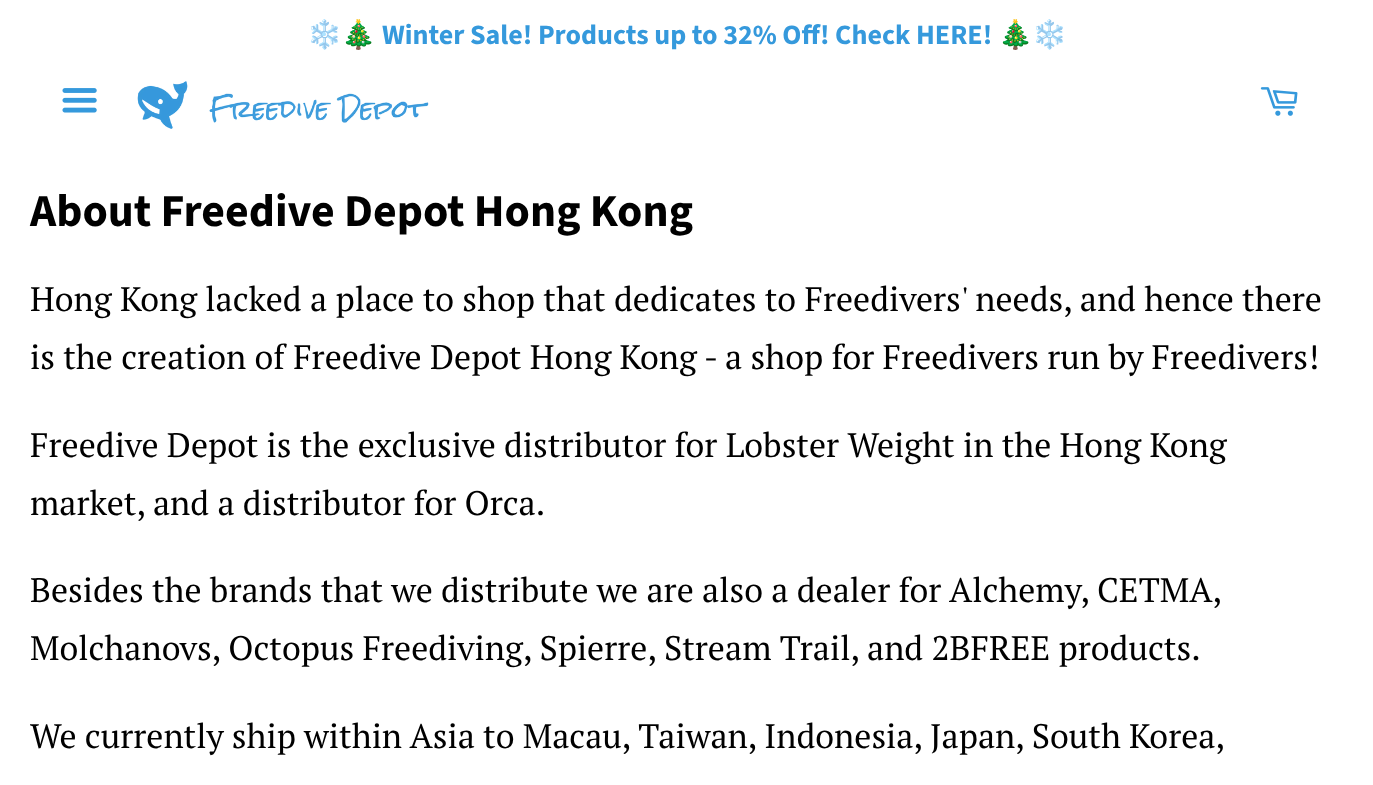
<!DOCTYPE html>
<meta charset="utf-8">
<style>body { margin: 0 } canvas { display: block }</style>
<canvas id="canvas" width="1373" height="785"></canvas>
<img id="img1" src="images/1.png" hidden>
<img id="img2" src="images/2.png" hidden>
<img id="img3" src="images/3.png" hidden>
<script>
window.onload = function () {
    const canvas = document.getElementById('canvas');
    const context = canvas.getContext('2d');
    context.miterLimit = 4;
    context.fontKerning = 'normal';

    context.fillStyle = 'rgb(255, 255, 255)';
    context.fillRect(0, 0, 1373, 785);
    context.drawImage(document.getElementById('img1'), 62, 88, 35, 25);
    context.drawImage(document.getElementById('img2'), 137, 81, 292, 48);
    context.drawImage(document.getElementById('img3'), 1260, 87, 38, 29);
    context.font = 'bold 28px Noto Color Emoji';
    context.fillStyle = 'rgb(53, 153, 220)';
    context.fillText('❄️🎄', 307, 44);
    context.font = 'bold 28px Source Sans Pro';
    context.fillText('Winter Sale! Products up to 32% Off! Check HERE!', 382, 44);
    context.font = 'bold 28px Noto Color Emoji';
    context.fillText('🎄❄️', 998, 44);
    context.font = 'bold 45.75px Source Sans Pro';
    context.fillStyle = 'rgb(0, 0, 0)';
    context.fillText('About Freedive Depot Hong Kong', 30, 226);
    context.font = '34px PT Serif';
    context.fillText('Hong Kong lacked a place to shop that dedicates to Freedivers\' needs, and hence there', 30, 311);
    context.fillText('is the creation of Freedive Depot Hong Kong - a shop for Freedivers run by Freedivers!', 30, 369);
    context.fillText('Freedive Depot is the exclusive distributor for Lobster Weight in the Hong Kong', 30, 457);
    context.fillText('market, and a distributor for Orca.', 30, 515);
    context.fillText('Besides the brands that we distribute we are also a dealer for Alchemy, CETMA,', 30, 602);
    context.fillText('Molchanovs, Octopus Freediving, Spierre, Stream Trail, and 2BFREE products.', 30, 660);
    context.wordSpacing = '-0.1px';
    context.fillText('We currently ship within Asia to Macau, Taiwan, Indonesia, Japan, South Korea,', 30, 748);
};
</script>
